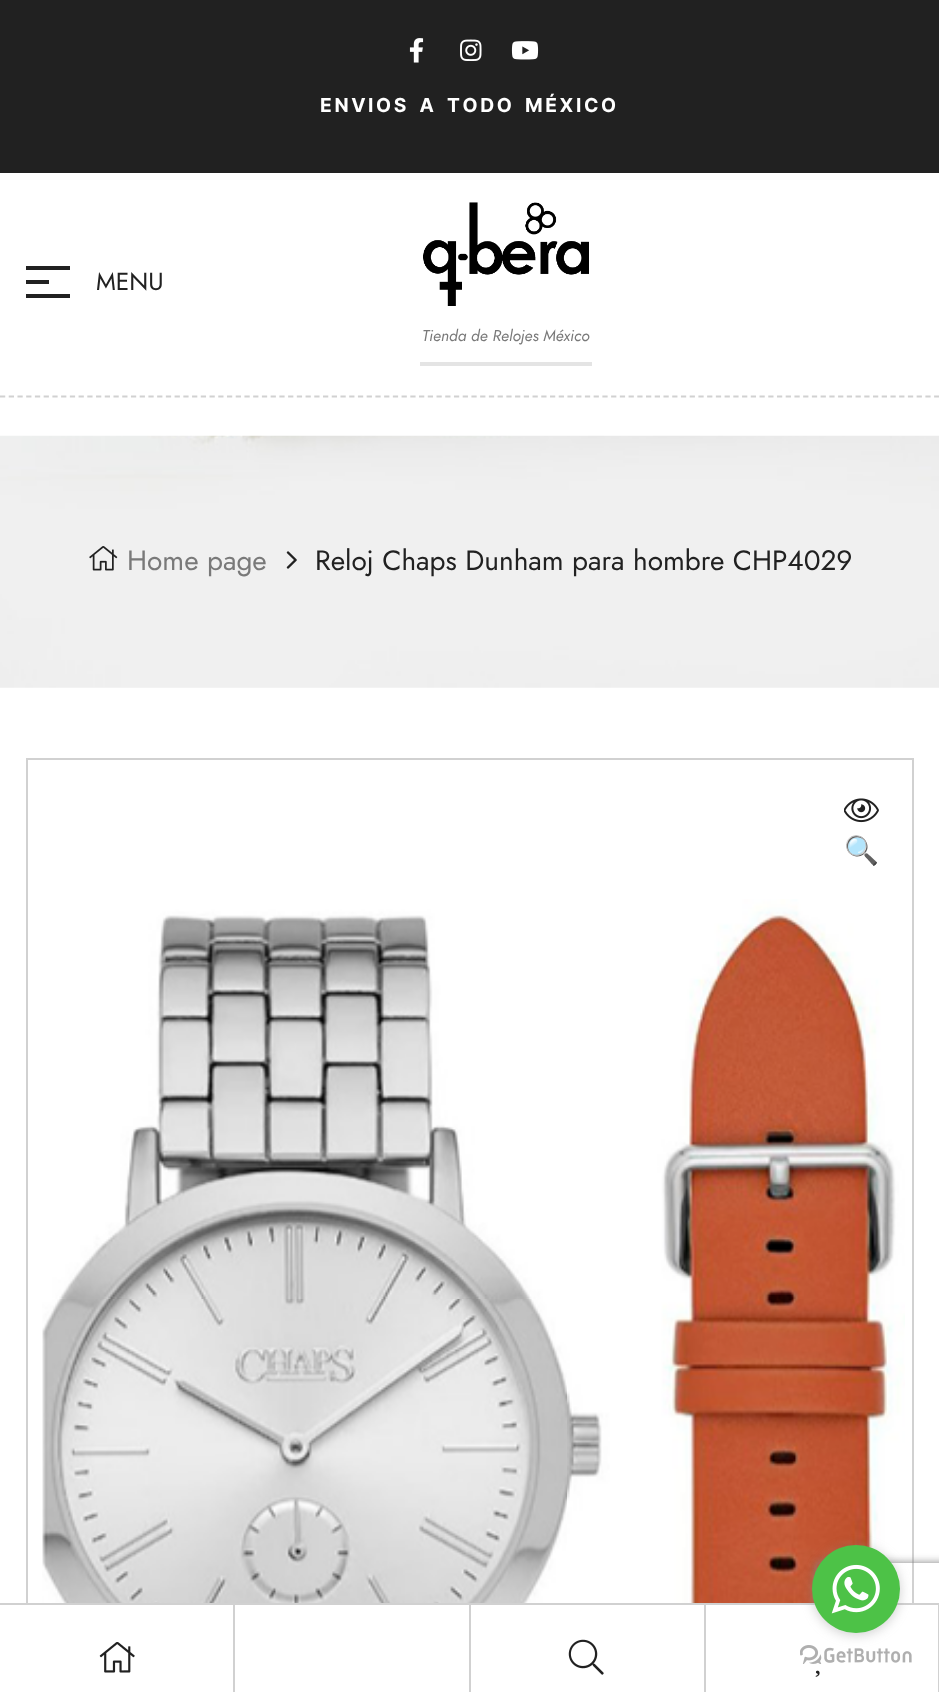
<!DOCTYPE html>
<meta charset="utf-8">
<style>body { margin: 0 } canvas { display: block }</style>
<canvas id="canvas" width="939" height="1692"></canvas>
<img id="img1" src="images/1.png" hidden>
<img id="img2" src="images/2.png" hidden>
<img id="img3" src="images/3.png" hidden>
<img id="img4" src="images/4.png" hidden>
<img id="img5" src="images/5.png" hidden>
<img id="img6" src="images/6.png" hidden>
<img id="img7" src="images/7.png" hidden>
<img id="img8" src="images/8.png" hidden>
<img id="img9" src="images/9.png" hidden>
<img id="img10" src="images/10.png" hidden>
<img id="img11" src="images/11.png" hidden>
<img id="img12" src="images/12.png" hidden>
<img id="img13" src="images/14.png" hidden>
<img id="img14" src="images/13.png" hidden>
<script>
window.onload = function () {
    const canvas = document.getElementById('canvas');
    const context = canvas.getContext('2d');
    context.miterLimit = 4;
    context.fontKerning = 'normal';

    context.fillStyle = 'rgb(255, 255, 255)';
    context.fillRect(0, 0, 939, 1692);
    context.fillStyle = 'rgb(33, 33, 33)';
    context.fillRect(0, 0, 939, 173);
    context.drawImage(document.getElementById('img1'), 409, 38, 15, 25);
    context.drawImage(document.getElementById('img2'), 460, 39, 22, 22);
    context.drawImage(document.getElementById('img3'), 511, 41, 28, 19);
    context.fillRect(26, 266, 44, 4);
    context.fillRect(26, 280, 23, 4);
    context.fillRect(26, 294, 44, 4);
    context.drawImage(document.getElementById('img4'), 423, 202, 166, 104);
    context.fillStyle = 'rgb(228, 228, 228)';
    context.fillRect(420, 362, 172, 4);
    context.beginPath();
    context.moveTo(0, 396.5);
    context.lineTo(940, 396.5);
    context.strokeStyle = 'rgb(209, 209, 209)';
    context.lineWidth = 1.8;
    context.setLineDash([5.25, 3.48]);
    context.stroke();
    context.drawImage(document.getElementById('img5'), 0, 435, 939, 253);
    context.drawImage(document.getElementById('img6'), 89, 546, 29, 25);
    context.drawImage(document.getElementById('img7'), 286, 551, 11, 18);
    context.lineWidth = 2;
    context.setLineDash([]);
    context.strokeRect(27, 759, 886, 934);
    context.drawImage(document.getElementById('img8'), 42, 899, 863, 704);
    context.drawImage(document.getElementById('img9'), 844, 798, 35, 25);
    context.save();
    context.beginPath();
    context.moveTo(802, 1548);
    context.lineTo(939, 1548);
    context.lineTo(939, 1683);
    context.lineTo(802, 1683);
    context.closePath();
    context.moveTo(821, 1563);
    context.lineTo(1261, 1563);
    context.bezierCurveTo(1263, 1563, 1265, 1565, 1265, 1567);
    context.lineTo(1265, 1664);
    context.bezierCurveTo(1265, 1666, 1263, 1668, 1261, 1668);
    context.lineTo(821, 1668);
    context.bezierCurveTo(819, 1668, 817, 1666, 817, 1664);
    context.lineTo(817, 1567);
    context.bezierCurveTo(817, 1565, 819, 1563, 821, 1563);
    context.closePath();
    context.clip('evenodd');
    context.fillStyle = 'rgb(128, 128, 128)';
    context.filter = 'blur(4.5px)';
    context.beginPath();
    context.roundRect(817, 1563, 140, 105, 4);
    context.fill();
    context.filter = 'none';
    context.restore();
    context.fillStyle = 'rgb(255, 255, 255)';
    context.fillRect(26, 1605, 912, 87);
    context.fillStyle = 'rgb(209, 209, 209)';
    context.fillRect(0, 1603, 939, 2);
    context.fillRect(233, 1605, 2, 87);
    context.drawImage(document.getElementById('img10'), 99, 1642, 36, 31);
    context.fillRect(469, 1605, 2, 87);
    context.fillRect(704, 1605, 2, 87);
    context.drawImage(document.getElementById('img11'), 568, 1639, 36, 36);
    context.fillRect(938, 1605, 1, 87);
    context.drawImage(document.getElementById('img12'), 815, 1670, 5, 7);
    context.drawImage(document.getElementById('img13'), 800, 1645, 112, 19);
    context.fillStyle = 'rgba(136, 136, 136, 0.4)';
    context.filter = 'blur(6px)';
    context.beginPath();
    context.roundRect(812, 1547, 88, 88, 44);
    context.fill();
    context.filter = 'none';
    context.fillStyle = 'rgb(77, 194, 71)';
    context.beginPath();
    context.arc(856, 1589, 44, 0, 2 * Math.PI);
    context.fill();
    context.drawImage(document.getElementById('img14'), 831, 1564, 49, 50);
    context.letterSpacing = '2.6px';
    context.wordSpacing = '3.5px';
    context.font = '19.25px Konkhmer Sleokchher';
    context.fillStyle = 'rgb(255, 255, 255)';
    context.fillText('ENVIOS A TODO MÉXICO', 320, 112);
    context.letterSpacing = '0px';
    context.wordSpacing = '0px';
    context.font = '24.5px Jost';
    context.fillStyle = 'rgb(33, 33, 33)';
    context.fillText('MENU', 96, 290);
    context.font = 'italic 15.75px Jost';
    context.fillStyle = 'rgb(121, 121, 121)';
    context.fillText('Tienda de Relojes México', 422, 341);
    context.font = '28px Jost';
    context.fillText('Home page', 127, 570);
    context.fillStyle = 'rgb(33, 33, 33)';
    context.fillText('Reloj Chaps Dunham para hombre CHP4029', 315, 570);
    context.save();
    context.beginPath();
    context.rect(844, 793, 35, 80);
    context.clip();
    context.font = '28px Noto Color Emoji';
    context.fillText('🔍', 844, 860);
    context.restore();
};
</script>
